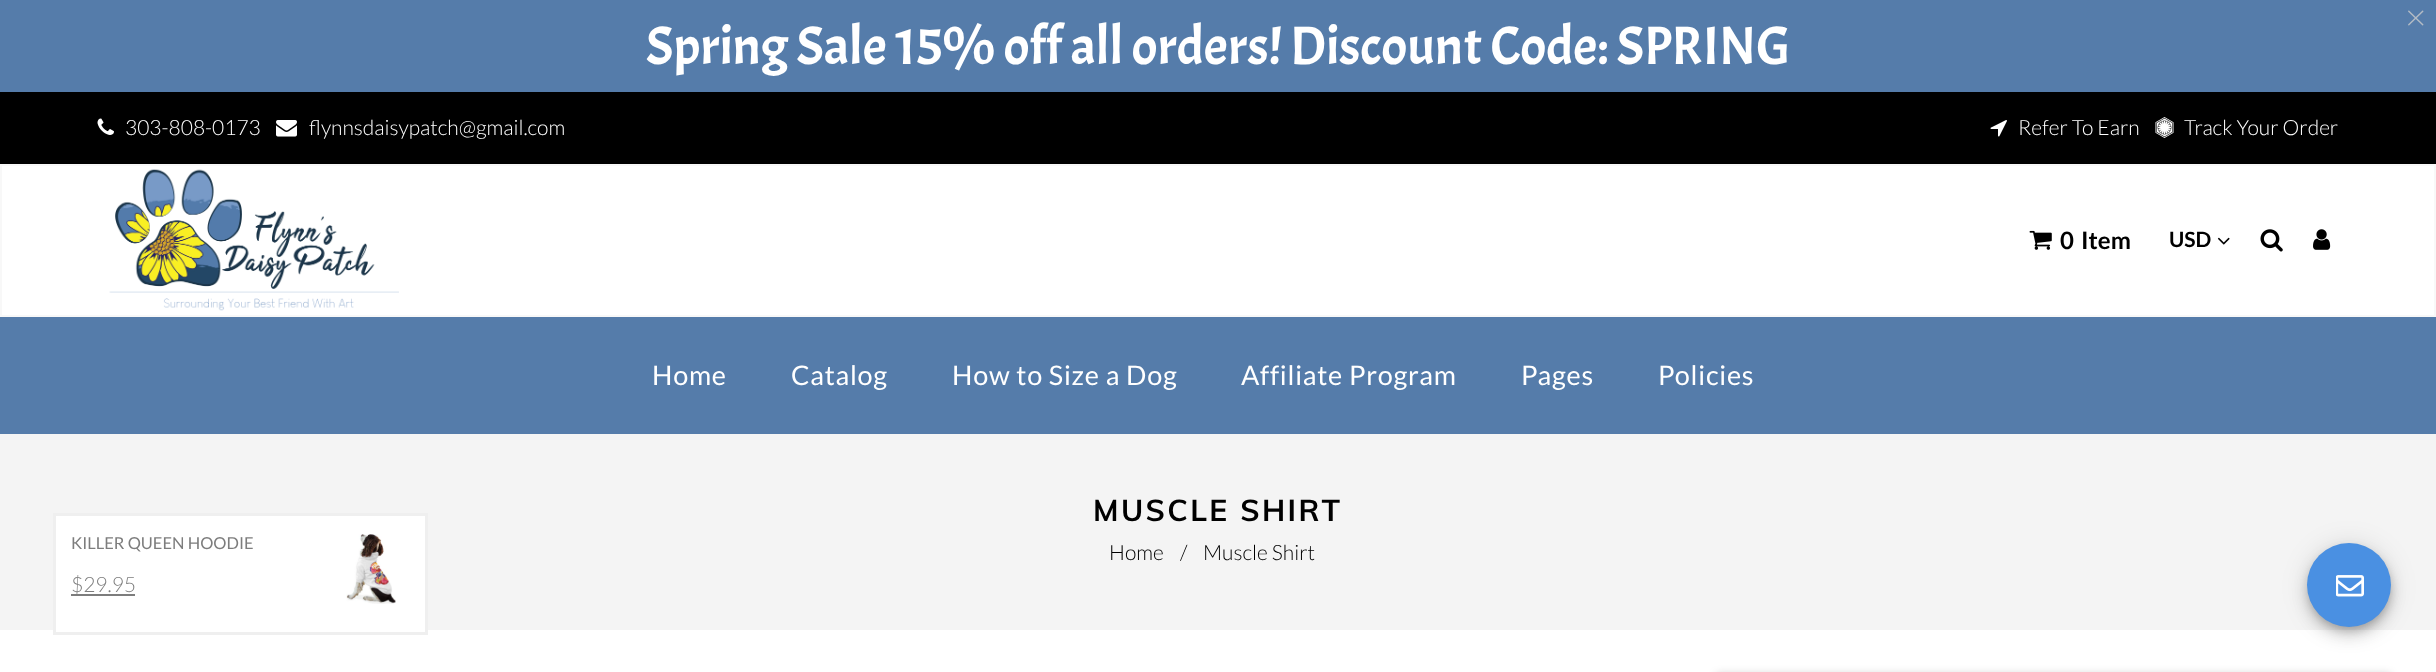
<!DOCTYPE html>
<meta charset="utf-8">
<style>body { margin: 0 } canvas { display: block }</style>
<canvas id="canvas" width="2436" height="672"></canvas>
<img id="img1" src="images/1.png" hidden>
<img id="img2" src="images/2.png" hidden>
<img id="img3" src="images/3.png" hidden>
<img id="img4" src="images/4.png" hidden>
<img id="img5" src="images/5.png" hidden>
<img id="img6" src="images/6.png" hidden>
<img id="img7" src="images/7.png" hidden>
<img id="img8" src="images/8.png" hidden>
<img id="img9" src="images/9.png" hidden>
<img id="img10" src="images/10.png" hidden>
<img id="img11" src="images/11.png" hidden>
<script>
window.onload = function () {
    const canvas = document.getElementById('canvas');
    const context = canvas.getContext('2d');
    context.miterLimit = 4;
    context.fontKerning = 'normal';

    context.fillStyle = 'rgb(255, 255, 255)';
    context.fillRect(0, 0, 2436, 672);
    context.fillStyle = 'rgb(85, 124, 170)';
    context.fillRect(0, 0, 2436, 92);
    context.fillStyle = 'rgb(180, 188, 197)';
    context.beginPath();
    context.moveTo(2408.5, 10.5);
    context.lineTo(2409, 10.5);
    context.lineTo(2423.5, 24.5);
    context.lineTo(2423, 25.5);
    context.lineTo(2422.5, 25.5);
    context.lineTo(2408, 11.5);
    context.closePath();
    context.fill();
    context.beginPath();
    context.moveTo(2423, 10.5);
    context.lineTo(2423.5, 11.5);
    context.lineTo(2409, 25.5);
    context.lineTo(2408.5, 25.5);
    context.lineTo(2408, 24.5);
    context.lineTo(2422.5, 10.5);
    context.closePath();
    context.fill();
    context.fillStyle = 'rgb(0, 0, 0)';
    context.fillRect(0, 92, 2436, 72);
    context.drawImage(document.getElementById('img1'), 97, 118, 17, 17);
    context.drawImage(document.getElementById('img2'), 276, 120, 21, 17);
    context.drawImage(document.getElementById('img3'), 1990, 120, 17, 17);
    context.drawImage(document.getElementById('img4'), 2155, 117, 19, 21);
    context.strokeStyle = 'rgb(248, 248, 248)';
    context.lineWidth = 2;
    context.strokeRect(1, 165, 2434, 151);
    context.drawImage(document.getElementById('img5'), 109, 169, 290, 142);
    context.drawImage(document.getElementById('img6'), 2029, 230, 23, 20);
    context.drawImage(document.getElementById('img7'), 2217, 237, 13, 8);
    context.drawImage(document.getElementById('img8'), 2260, 229, 23, 23);
    context.drawImage(document.getElementById('img9'), 2313, 229, 18, 21);
    context.fillStyle = 'rgb(85, 124, 170)';
    context.fillRect(0, 317, 2436, 117);
    context.fillStyle = 'rgb(244, 244, 244)';
    context.fillRect(0, 434, 2436, 196);
    context.fillStyle = 'rgb(255, 255, 255)';
    context.fillRect(56, 516, 369, 114);
    context.strokeStyle = 'rgb(239, 239, 239)';
    context.lineWidth = 3;
    context.strokeRect(54.5, 514.5, 372, 119);
    context.drawImage(document.getElementById('img10'), 346, 534, 50, 70);
    context.fillStyle = 'rgb(125, 125, 125)';
    context.fillRect(71, 594, 64, 2);
    context.fillStyle = 'rgba(0, 0, 0, 0.12)';
    context.filter = 'blur(13.5px)';
    context.beginPath();
    context.roundRect(2307, 545, 84, 84, 42);
    context.fill();
    context.filter = 'none';
    context.fillStyle = 'rgba(0, 0, 0, 0.14)';
    context.filter = 'blur(7.5px)';
    context.beginPath();
    context.roundRect(2307, 552, 84, 84, 42);
    context.fill();
    context.filter = 'none';
    context.fillStyle = 'rgba(0, 0, 0, 0.2)';
    context.filter = 'blur(4px)';
    context.beginPath();
    context.roundRect(2309, 549, 81, 81, 40.5);
    context.fill();
    context.filter = 'none';
    context.fillStyle = 'rgb(74, 144, 226)';
    context.beginPath();
    context.arc(2349, 585, 42, 0, 2 * Math.PI);
    context.fill();
    context.drawImage(document.getElementById('img11'), 2336, 575, 28, 22);
    context.fillStyle = 'rgba(0, 0, 0, 0.2)';
    context.filter = 'blur(4px)';
    context.beginPath();
    context.roundRect(1716, 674, 675, 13, 3);
    context.fill();
    context.filter = 'none';
    context.font = '54px Acme';
    context.fillStyle = 'rgb(255, 255, 255)';
    context.fillText('Spring Sale 15% off all orders! Discount Code: SPRING', 646, 64);
    context.font = '300 21px Lato';
    context.fillText('303-808-0173', 125, 135);
    context.fillText('flynnsdaisypatch@gmail.com', 309, 135);
    context.fillText('Refer To Earn', 2018, 135);
    context.fillText('Track Your Order', 2184, 135);
    context.font = 'bold 24px Lato';
    context.fillStyle = 'rgb(0, 0, 0)';
    context.fillText('0', 2060, 249);
    context.fillText('Item', 2081, 249);
    context.font = 'bold 21px Lato';
    context.fillText('USD', 2169, 247);
    context.letterSpacing = '0.75px';
    context.font = '27px Lato';
    context.fillStyle = 'rgb(255, 255, 255)';
    context.fillText('Home', 652, 385);
    context.fillText('Catalog', 791, 385);
    context.fillText('How to Size a Dog', 952, 385);
    context.fillText('Affiliate Program', 1241, 385);
    context.fillText('Pages', 1521, 385);
    context.fillText('Policies', 1658, 385);
    context.letterSpacing = '2.4px';
    context.font = 'bold 30px Muli';
    context.fillStyle = 'rgb(0, 0, 0)';
    context.fillText('MUSCLE SHIRT', 1093, 521);
    context.letterSpacing = '0px';
    context.font = '300 21px Lato';
    context.fillText('Home', 1109, 560);
    context.fillText('/', 1180, 560);
    context.fillText('Muscle Shirt', 1203, 560);
    context.font = '16.5px Lato';
    context.fillStyle = 'rgb(125, 125, 125)';
    context.fillText('KILLER QUEEN HOODIE', 71, 549);
    context.font = '300 21px Lato';
    context.fillText('$29.95', 71, 592);
};
</script>
